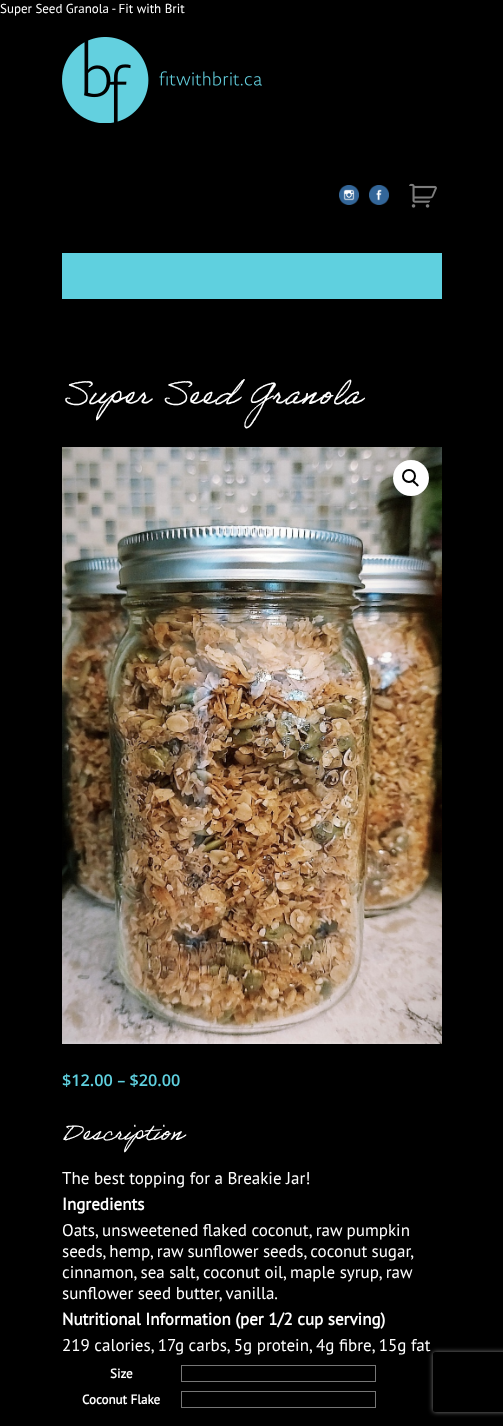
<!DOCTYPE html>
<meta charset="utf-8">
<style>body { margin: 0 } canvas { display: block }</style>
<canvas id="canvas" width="503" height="1426"></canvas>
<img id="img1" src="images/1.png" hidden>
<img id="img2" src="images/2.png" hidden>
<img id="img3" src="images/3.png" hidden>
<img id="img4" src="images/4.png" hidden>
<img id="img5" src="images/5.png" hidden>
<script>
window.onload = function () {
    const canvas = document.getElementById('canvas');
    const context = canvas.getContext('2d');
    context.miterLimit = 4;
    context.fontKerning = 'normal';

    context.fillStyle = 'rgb(0, 0, 0)';
    context.fillRect(0, 0, 503, 1426);
    context.drawImage(document.getElementById('img1'), 62, 37, 200, 86);
    context.drawImage(document.getElementById('img2'), 339, 185, 20, 20);
    context.drawImage(document.getElementById('img3'), 369, 185, 20, 20);
    context.drawImage(document.getElementById('img4'), 409, 183, 28, 25);
    context.fillStyle = 'rgb(95, 208, 223)';
    context.fillRect(62, 253, 380, 46);
    context.drawImage(document.getElementById('img5'), 62, 447, 380, 597);
    context.fillStyle = 'rgb(255, 255, 255)';
    context.beginPath();
    context.arc(411, 478, 18, 0, 2 * Math.PI);
    context.fill();
    context.beginPath();
    context.arc(409, 476, 6, 0, 2 * Math.PI);
    context.strokeStyle = 'rgb(0, 0, 0)';
    context.lineWidth = 2;
    context.stroke();
    context.fillStyle = 'rgb(0, 0, 0)';
    context.beginPath();
    context.moveTo(412.5, 480.5);
    context.bezierCurveTo(414, 479.5, 415.5, 482, 416, 482.5);
    context.bezierCurveTo(417, 483.5, 419.5, 485, 418.5, 486);
    context.bezierCurveTo(417, 487.5, 415.5, 484.5, 415, 484);
    context.bezierCurveTo(414, 483.5, 411.5, 481.5, 412.5, 480.5);
    context.closePath();
    context.fill();
    context.strokeStyle = 'rgb(118, 118, 118)';
    context.lineWidth = 1;
    context.strokeRect(181.5, 1365.5, 194, 16);
    context.strokeRect(181.5, 1391.5, 194, 16);
    context.save();
    context.beginPath();
    context.moveTo(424, 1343);
    context.lineTo(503, 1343);
    context.lineTo(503, 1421);
    context.lineTo(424, 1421);
    context.closePath();
    context.moveTo(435, 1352);
    context.lineTo(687, 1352);
    context.bezierCurveTo(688, 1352, 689, 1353, 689, 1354);
    context.lineTo(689, 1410);
    context.bezierCurveTo(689, 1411, 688, 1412, 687, 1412);
    context.lineTo(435, 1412);
    context.bezierCurveTo(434, 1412, 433, 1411, 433, 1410);
    context.lineTo(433, 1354);
    context.bezierCurveTo(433, 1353, 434, 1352, 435, 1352);
    context.closePath();
    context.clip('evenodd');
    context.fillStyle = 'rgb(128, 128, 128)';
    context.filter = 'blur(2.5px)';
    context.beginPath();
    context.roundRect(433, 1352, 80, 60, 2);
    context.fill();
    context.filter = 'none';
    context.restore();
    context.font = '13px PT Sans';
    context.fillStyle = 'rgb(255, 255, 255)';
    context.fillText('Super Seed Granola - Fit with Brit', 0, 13);
    context.font = '32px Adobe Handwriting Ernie';
    context.fillText('Super Seed Granola', 62, 404);
    context.font = '600 16.25px Open Sans';
    context.fillStyle = 'rgb(95, 208, 223)';
    context.fillText('$12.00 – $20.00', 62, 1086);
    context.font = '24px Adobe Handwriting Ernie';
    context.fillStyle = 'rgb(255, 255, 255)';
    context.fillText('Description', 62, 1140);
    context.font = '17px PT Sans';
    context.fillText('The best topping for a Breakie Jar!', 62, 1184);
    context.font = 'bold 17px PT Sans';
    context.fillText('Ingredients', 62, 1210);
    context.font = '17px PT Sans';
    context.fillText('Oats, unsweetened flaked coconut, raw pumpkin', 62, 1236);
    context.wordSpacing = '-0.25px';
    context.fillText('seeds, hemp, raw sunflower seeds, coconut sugar,', 62, 1257);
    context.wordSpacing = '0px';
    context.fillText('cinnamon, sea salt, coconut oil, maple syrup, raw', 62, 1278);
    context.fillText('sunflower seed butter, vanilla.', 62, 1299);
    context.font = 'bold 17px PT Sans';
    context.fillText('Nutritional Information (per 1/2 cup serving)', 62, 1325);
    context.font = '17px PT Sans';
    context.fillText('219 calories, 17g carbs, 5g protein, 4g fibre, 15g fat', 62, 1351);
    context.font = 'bold 13px PT Sans';
    context.fillText('Size', 110, 1378);
    context.fillText('Coconut Flake', 82, 1404);
};
</script>
